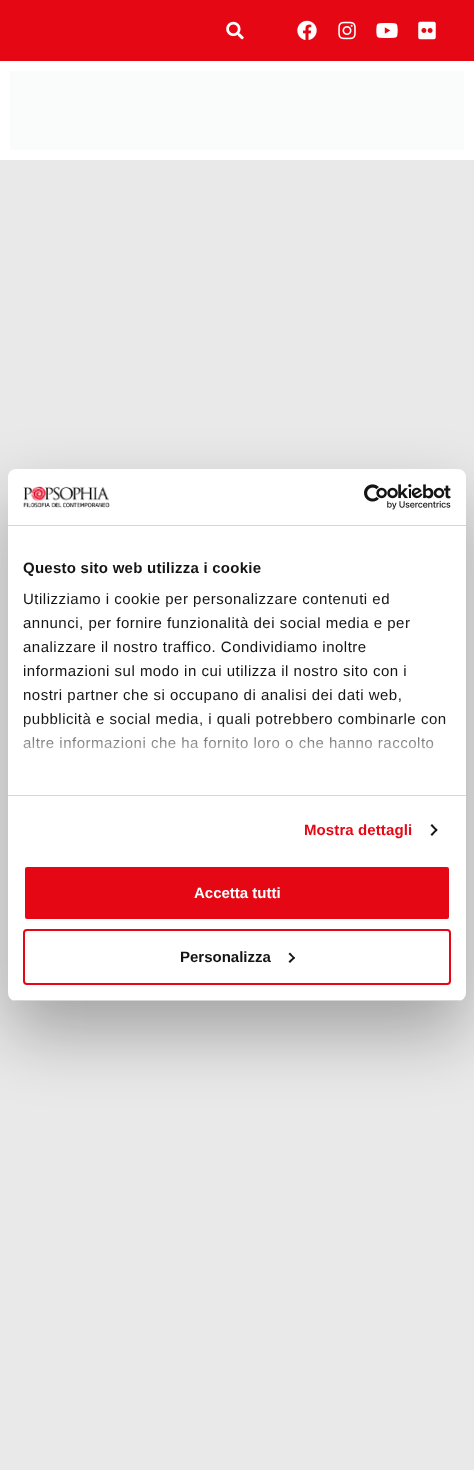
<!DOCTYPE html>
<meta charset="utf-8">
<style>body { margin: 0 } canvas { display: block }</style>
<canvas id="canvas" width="474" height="1470"></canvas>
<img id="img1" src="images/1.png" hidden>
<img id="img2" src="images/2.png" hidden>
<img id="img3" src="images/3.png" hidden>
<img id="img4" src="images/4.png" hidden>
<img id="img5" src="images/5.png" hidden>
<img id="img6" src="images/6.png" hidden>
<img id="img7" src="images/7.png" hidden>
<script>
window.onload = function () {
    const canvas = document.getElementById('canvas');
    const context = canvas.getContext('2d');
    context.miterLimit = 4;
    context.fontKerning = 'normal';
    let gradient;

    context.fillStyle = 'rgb(229, 7, 20)';
    context.fillRect(0, 0, 474, 1470);
    context.drawImage(document.getElementById('img1'), 226, 21, 18, 19);
    context.drawImage(document.getElementById('img2'), 297, 20, 20, 20);
    context.drawImage(document.getElementById('img3'), 338, 21, 18, 19);
    context.drawImage(document.getElementById('img4'), 376, 23, 22, 15);
    context.drawImage(document.getElementById('img5'), 418, 21, 18, 19);
    context.fillStyle = 'rgb(255, 255, 255)';
    context.fillRect(0, 61, 474, 99);
    context.fillStyle = 'rgb(250, 251, 251)';
    context.fillRect(10, 71, 454, 79);
    context.fillStyle = 'rgb(233, 233, 233)';
    context.fillRect(0, 160, 474, 1310);
    context.fillStyle = 'rgba(0, 0, 0, 0.3)';
    context.filter = 'blur(34px)';
    context.beginPath();
    context.roundRect(8, 501, 458, 532, 8);
    context.fill();
    context.filter = 'none';
    context.fillStyle = 'rgb(255, 255, 255)';
    context.beginPath();
    context.roundRect(8, 469, 458, 532, 8);
    context.fill();
    context.fillStyle = 'rgb(214, 214, 214)';
    context.fillRect(8, 525, 458, 1);
    context.drawImage(document.getElementById('img6'), 23, 486, 87, 22);
    context.drawImage(document.getElementById('img7'), 364, 484, 87, 26);
    context.fillRect(8, 795, 458, 1);
    context.fillStyle = 'rgb(20, 20, 20)';
    context.beginPath();
    context.moveTo(432, 824);
    context.lineTo(437.5, 830);
    context.lineTo(436.5, 831.5);
    context.lineTo(430.5, 825.5);
    context.closePath();
    context.fill();
    context.beginPath();
    context.moveTo(436.5, 828.5);
    context.lineTo(437.5, 830);
    context.lineTo(432, 836);
    context.lineTo(430.5, 834.5);
    context.closePath();
    context.fill();
    context.save();
    context.beginPath();
    context.roundRect(8, 469, 458, 532, 8);
    context.clip();
    context.fillStyle = 'rgb(214, 214, 214)';
    context.fillRect(8, 1000, 458, 1);
    context.restore();
    context.fillStyle = 'rgb(229, 7, 20)';
    context.beginPath();
    context.roundRect(24, 866, 426, 54, 3);
    context.fill();
    context.strokeStyle = 'rgb(255, 255, 255)';
    context.lineWidth = 2;
    context.stroke();
    context.beginPath();
    context.roundRect(24, 930, 426, 54, 3);
    context.strokeStyle = 'rgb(229, 7, 20)';
    context.stroke();
    context.fillStyle = 'rgb(20, 20, 20)';
    context.beginPath();
    context.moveTo(290, 952.5);
    context.lineTo(295, 958);
    context.lineTo(294, 959);
    context.lineTo(288.5, 954);
    context.closePath();
    context.fill();
    context.beginPath();
    context.moveTo(294, 956.5);
    context.lineTo(295, 958);
    context.lineTo(290, 963);
    context.lineTo(288.5, 961.5);
    context.closePath();
    context.fill();
    context.letterSpacing = '0.25px';
    context.font = 'bold 15px Liberation Sans';
    context.fillText('Questo sito web utilizza i cookie', 23, 573);
    context.letterSpacing = '0.5px';
    context.font = '15px Liberation Sans';
    context.fillText('Utilizziamo i cookie per personalizzare contenuti ed', 23, 604);
    context.fillText('annunci, per fornire funzionalità dei social media e per', 23, 628);
    context.fillText('analizzare il nostro traffico. Condividiamo inoltre', 23, 652);
    context.fillText('informazioni sul modo in cui utilizza il nostro sito con i', 23, 676);
    context.fillText('nostri partner che si occupano di analisi dei dati web,', 23, 700);
    context.fillText('pubblicità e social media, i quali potrebbero combinarle con', 23, 724);
    context.fillText('altre informazioni che ha fornito loro o che hanno raccolto', 23, 748);
    gradient = context.createLinearGradient(231, 795, 231, 720);
    gradient.addColorStop(0, 'rgb(255, 255, 255)');
    gradient.addColorStop(0.5, 'rgba(255, 255, 255, 0.8)');
    gradient.addColorStop(1, 'rgba(255, 255, 255, 0)');
    context.fillStyle = gradient;
    context.fillRect(23, 721, 422, 28);
    context.letterSpacing = '0.1px';
    context.font = 'bold 15px Liberation Sans';
    context.fillStyle = 'rgb(229, 7, 20)';
    context.fillText('Mostra dettagli', 304, 835);
    context.letterSpacing = '0px';
    context.fillStyle = 'rgb(255, 255, 255)';
    context.fillText('Accetta tutti', 194, 898);
    context.fillStyle = 'rgb(20, 20, 20)';
    context.fillText('Personalizza', 180, 962);
};
</script>
